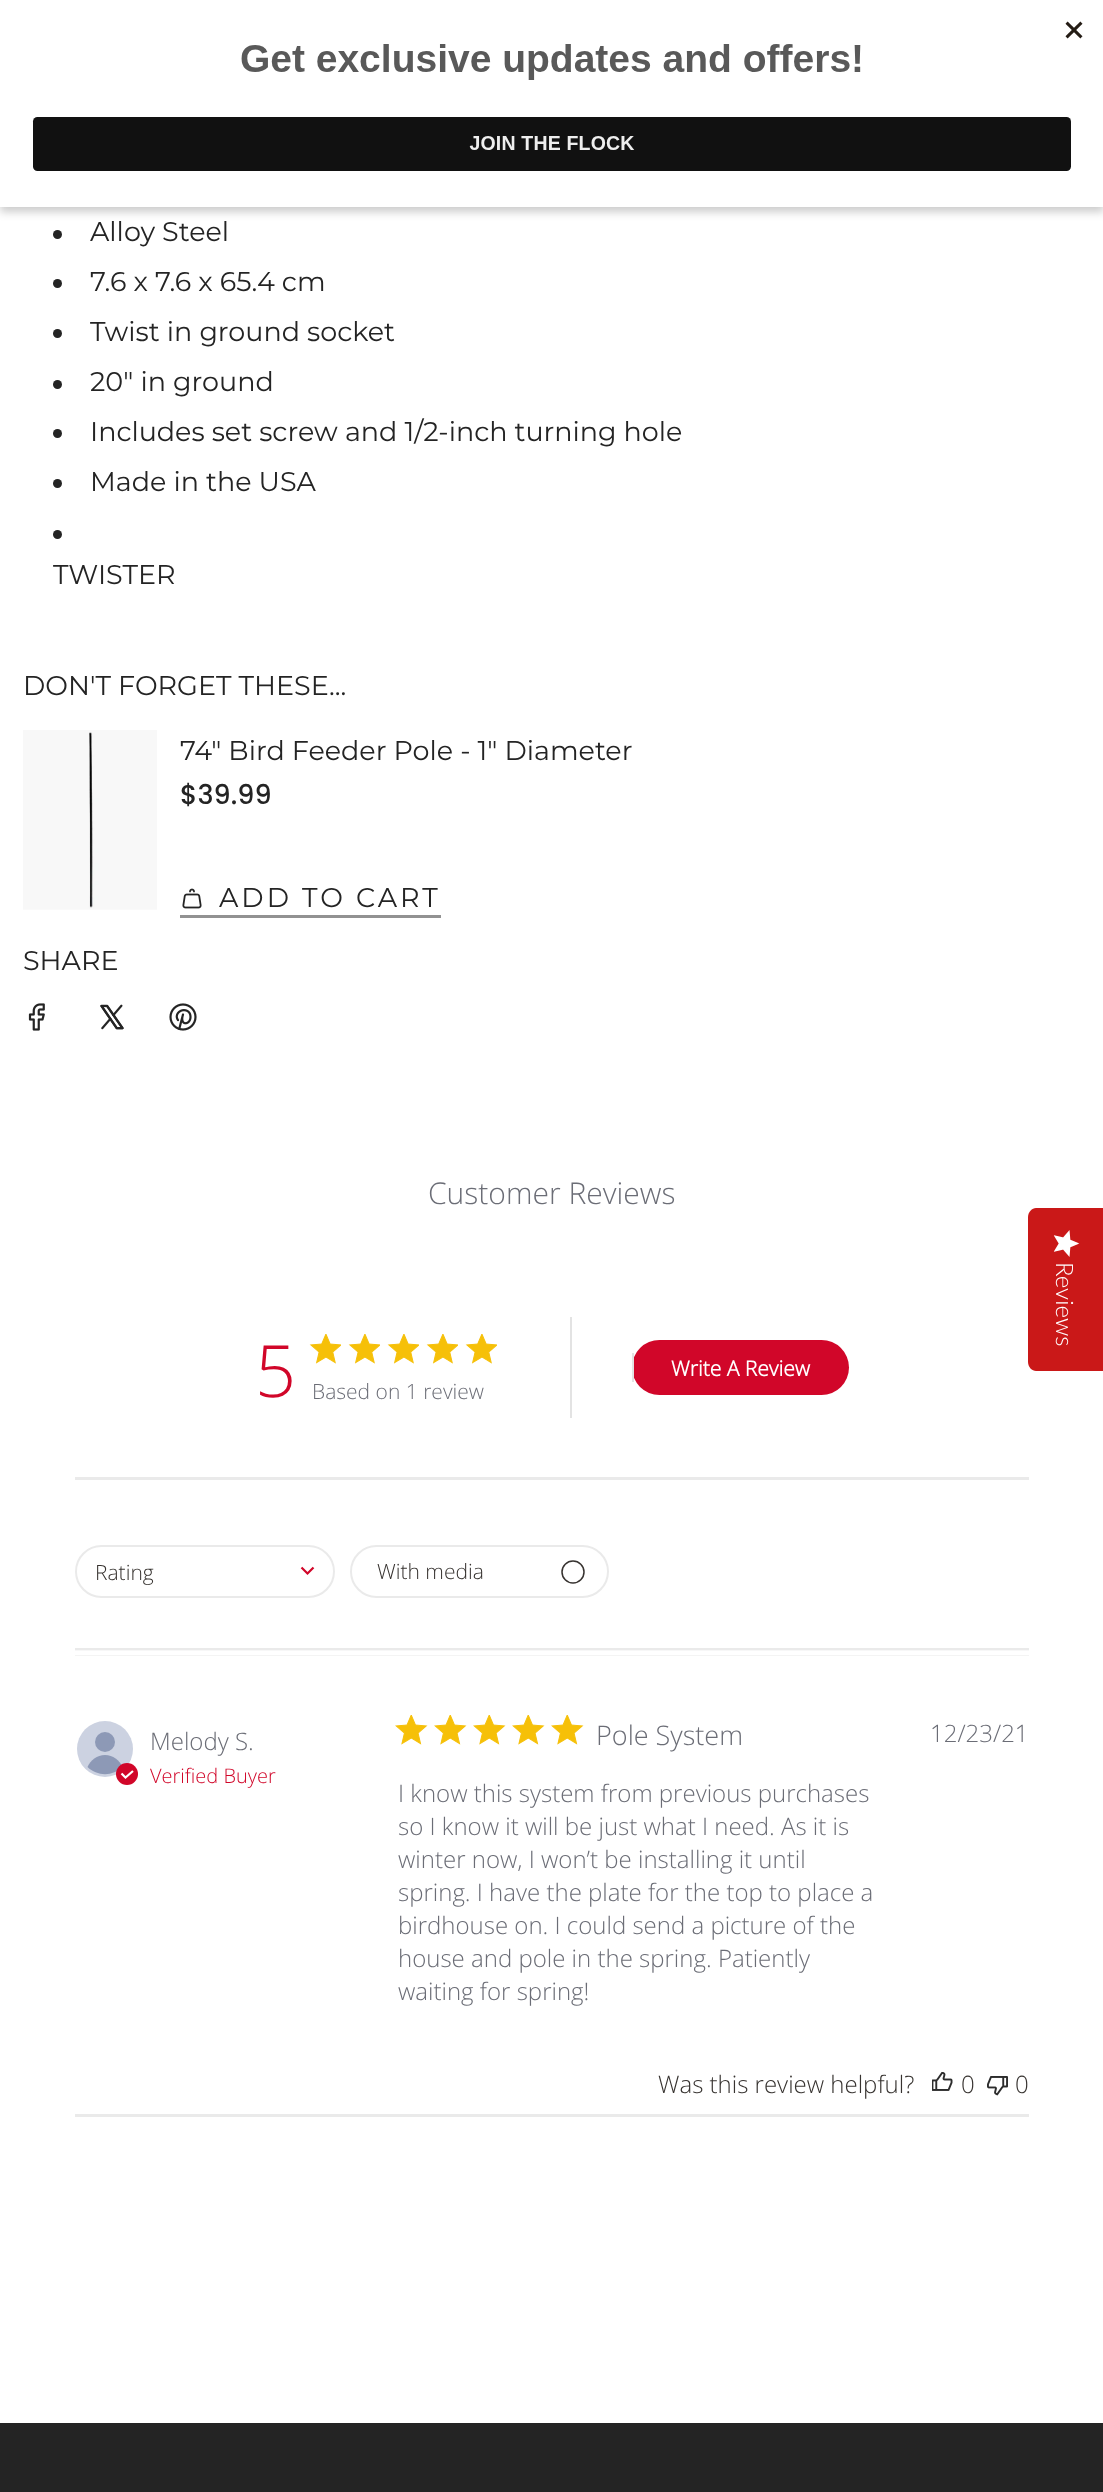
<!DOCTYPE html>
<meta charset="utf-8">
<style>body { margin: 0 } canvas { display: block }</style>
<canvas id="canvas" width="1103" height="2492"></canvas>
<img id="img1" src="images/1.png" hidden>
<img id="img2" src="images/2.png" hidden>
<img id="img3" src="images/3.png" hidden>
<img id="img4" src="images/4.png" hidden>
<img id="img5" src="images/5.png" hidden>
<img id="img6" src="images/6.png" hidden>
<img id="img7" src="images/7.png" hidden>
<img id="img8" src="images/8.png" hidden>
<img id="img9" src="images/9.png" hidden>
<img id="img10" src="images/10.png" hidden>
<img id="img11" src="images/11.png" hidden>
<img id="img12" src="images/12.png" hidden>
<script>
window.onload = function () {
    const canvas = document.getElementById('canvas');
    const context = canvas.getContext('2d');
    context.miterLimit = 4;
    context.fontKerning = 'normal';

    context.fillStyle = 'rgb(255, 255, 255)';
    context.fillRect(0, 0, 1103, 2492);
    context.fillStyle = 'rgba(0, 0, 0, 0.2)';
    context.filter = 'blur(4.5px)';
    context.beginPath();
    context.rect(0, 5, 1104, 207);
    context.fill();
    context.filter = 'none';
    context.fillStyle = 'rgb(255, 255, 255)';
    context.fillRect(0, 0, 1103, 207);
    context.drawImage(document.getElementById('img1'), 32, 21, 1051, 150);
    context.fillStyle = 'rgb(36, 36, 36)';
    context.beginPath();
    context.arc(57.5, 234.5, 4.5, 0, 2 * Math.PI);
    context.fill();
    context.beginPath();
    context.arc(57.5, 283.5, 4.5, 0, 2 * Math.PI);
    context.fill();
    context.beginPath();
    context.arc(57.5, 333.5, 4.5, 0, 2 * Math.PI);
    context.fill();
    context.beginPath();
    context.arc(57.5, 384.5, 4.5, 0, 2 * Math.PI);
    context.fill();
    context.beginPath();
    context.arc(57.5, 433.5, 4.5, 0, 2 * Math.PI);
    context.fill();
    context.beginPath();
    context.arc(57.5, 483.5, 4.5, 0, 2 * Math.PI);
    context.fill();
    context.beginPath();
    context.arc(57.5, 534.5, 4.5, 0, 2 * Math.PI);
    context.fill();
    context.drawImage(document.getElementById('img2'), 23, 730, 134, 180);
    context.fillStyle = 'rgb(146, 146, 146)';
    context.fillRect(180, 915, 261, 3);
    context.drawImage(document.getElementById('img3'), 182, 888, 20, 21);
    context.drawImage(document.getElementById('img4'), 28, 1003, 17, 28);
    context.drawImage(document.getElementById('img5'), 100, 1004, 24, 26);
    context.drawImage(document.getElementById('img6'), 169, 1003, 28, 28);
    context.drawImage(document.getElementById('img7'), 309, 1334, 32, 30);
    context.drawImage(document.getElementById('img7'), 348, 1334, 32, 30);
    context.drawImage(document.getElementById('img7'), 387, 1334, 32, 30);
    context.drawImage(document.getElementById('img7'), 426, 1334, 32, 30);
    context.drawImage(document.getElementById('img7'), 465, 1334, 32, 30);
    context.fillStyle = 'rgb(227, 227, 227)';
    context.fillRect(570, 1317, 2, 101);
    context.fillStyle = 'rgb(209, 6, 41)';
    context.beginPath();
    context.roundRect(632, 1340, 217, 55, 27.5);
    context.fill();
    context.fillStyle = 'rgb(227, 227, 227)';
    context.fillRect(632, 1353, 2, 29);
    context.fillStyle = 'rgb(234, 234, 234)';
    context.fillRect(75, 1477, 954, 3);
    context.beginPath();
    context.roundRect(76, 1546, 258, 51, 25.5);
    context.strokeStyle = 'rgb(234, 234, 234)';
    context.lineWidth = 2;
    context.stroke();
    context.beginPath();
    context.moveTo(301.5, 1567.5);
    context.lineTo(307.5, 1573.5);
    context.lineTo(313.5, 1567.5);
    context.strokeStyle = 'rgb(209, 6, 41)';
    context.lineWidth = 2.2;
    context.stroke();
    context.beginPath();
    context.roundRect(351, 1546, 257, 51, 25.5);
    context.strokeStyle = 'rgb(234, 234, 234)';
    context.lineWidth = 2;
    context.stroke();
    context.beginPath();
    context.arc(573, 1572, 11, 0, 2 * Math.PI);
    context.strokeStyle = 'rgb(55, 51, 48)';
    context.lineWidth = 1.5;
    context.stroke();
    context.drawImage(document.getElementById('img8'), 75, 1648, 954, 8);
    context.fillStyle = 'rgb(204, 210, 225)';
    context.beginPath();
    context.arc(105, 1749, 28, 0, 2 * Math.PI);
    context.fill();
    context.fillStyle = 'rgb(141, 153, 182)';
    context.beginPath();
    context.arc(105, 1742, 10, 0, 2 * Math.PI);
    context.fill();
    context.beginPath();
    context.moveTo(105, 1755);
    context.bezierCurveTo(113, 1755, 119.5, 1760, 122.5, 1767);
    context.bezierCurveTo(113, 1776.5, 97, 1776.5, 87.5, 1767);
    context.bezierCurveTo(90.5, 1760, 97, 1755, 105, 1755);
    context.closePath();
    context.fill();
    context.fillStyle = 'rgb(209, 6, 41)';
    context.beginPath();
    context.arc(127, 1774, 11, 0, 2 * Math.PI);
    context.fill();
    context.beginPath();
    context.moveTo(121.5, 1773.5);
    context.lineTo(125.5, 1777.5);
    context.lineTo(133, 1771);
    context.strokeStyle = 'rgb(255, 255, 255)';
    context.lineWidth = 2.2;
    context.stroke();
    context.drawImage(document.getElementById('img9'), 395, 1715, 33, 30);
    context.drawImage(document.getElementById('img9'), 434, 1715, 33, 30);
    context.drawImage(document.getElementById('img9'), 473, 1715, 33, 30);
    context.drawImage(document.getElementById('img9'), 512, 1715, 33, 30);
    context.drawImage(document.getElementById('img9'), 551, 1715, 33, 30);
    context.drawImage(document.getElementById('img10'), 932, 2072, 21, 19);
    context.drawImage(document.getElementById('img11'), 987, 2076, 21, 20);
    context.fillStyle = 'rgb(234, 234, 234)';
    context.fillRect(75, 2114, 954, 3);
    context.fillStyle = 'rgb(202, 24, 24)';
    context.beginPath();
    context.moveTo(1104, 1208);
    context.lineTo(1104, 1371);
    context.lineTo(1036, 1371);
    context.bezierCurveTo(1032, 1371, 1028, 1367, 1028, 1362);
    context.lineTo(1028, 1217);
    context.bezierCurveTo(1028, 1212, 1032, 1208, 1036, 1208);
    context.closePath();
    context.fill();
    context.drawImage(document.getElementById('img12'), 1053, 1230, 27, 27);
    context.fillStyle = 'rgb(36, 36, 36)';
    context.fillRect(0, 2423, 1103, 69);
    context.font = '27px Montserrat';
    context.fillText('Alloy Steel', 90, 241);
    context.fillText('7.6 x 7.6 x 65.4 cm', 90, 291);
    context.fillText('Twist in ground socket', 90, 341);
    context.fillText('20" in ground', 90, 391);
    context.fillText('Includes set screw and 1/2-inch turning hole', 90, 441);
    context.fillText('Made in the USA', 90, 491);
    context.fillText('TWISTER', 53, 584);
    context.fillText('DON\'T FORGET THESE...', 23, 695);
    context.fillText('74" Bird Feeder Pole - 1" Diameter', 180, 760);
    context.font = '500 27px Poppins';
    context.fillText('$39.99', 180, 804);
    context.letterSpacing = '3px';
    context.font = '27px Montserrat';
    context.fillText('ADD TO CART', 219, 907);
    context.letterSpacing = '0px';
    context.fillText('SHARE', 23, 970);
    context.font = '300 30px Open Sans';
    context.fillStyle = 'rgb(107, 109, 118)';
    context.fillText('Customer Reviews', 428, 1204);
    context.font = '300 72px Open Sans';
    context.fillStyle = 'rgb(209, 6, 41)';
    context.fillText('5', 255, 1397);
    context.font = '300 21px Open Sans';
    context.fillStyle = 'rgb(107, 109, 118)';
    context.fillText('Based on 1 review', 312, 1399);
    context.font = 'bold 21px Open Sans';
    context.fillStyle = 'rgb(255, 255, 255)';
    context.fillText('Write A Review', 671, 1376);
    context.font = '300 21px Open Sans';
    context.fillStyle = 'rgb(55, 51, 48)';
    context.fillText('Rating', 95, 1580);
    context.fillText('With media', 377, 1579);
    context.font = '300 24px Open Sans';
    context.fillStyle = 'rgb(107, 109, 118)';
    context.fillText('Melody S.', 150, 1750);
    context.font = '300 20px Open Sans';
    context.fillStyle = 'rgb(209, 6, 41)';
    context.fillText('Verified Buyer', 150, 1783);
    context.font = '300 27px Open Sans';
    context.fillStyle = 'rgb(107, 109, 118)';
    context.fillText('Pole System', 596, 1745);
    context.font = '300 24px Open Sans';
    context.fillText('I know this system from previous purchases', 398, 1802);
    context.fillText('so I know it will be just what I need. As it is', 398, 1835);
    context.fillText('winter now, I won’t be installing it until', 398, 1868);
    context.fillText('spring. I have the plate for the top to place a', 398, 1901);
    context.fillText('birdhouse on. I could send a picture of the', 398, 1934);
    context.fillText('house and pole in the spring. Patiently', 398, 1967);
    context.fillText('waiting for spring!', 398, 2000);
    context.fillText('12/23/21', 930, 1742);
    context.fillStyle = 'rgb(55, 51, 48)';
    context.fillText('Was this review helpful?', 658, 2093);
    context.fillText('0', 961, 2093);
    context.fillText('0', 1015, 2093);
    context.font = '300 24px Lato';
    context.fillStyle = 'rgb(255, 255, 255)';
    context.save();
    context.translate(1056, 1262);
    context.rotate(90 * Math.PI / 180);
    context.fillText('Reviews', 0, 0);
    context.restore();
};
</script>
